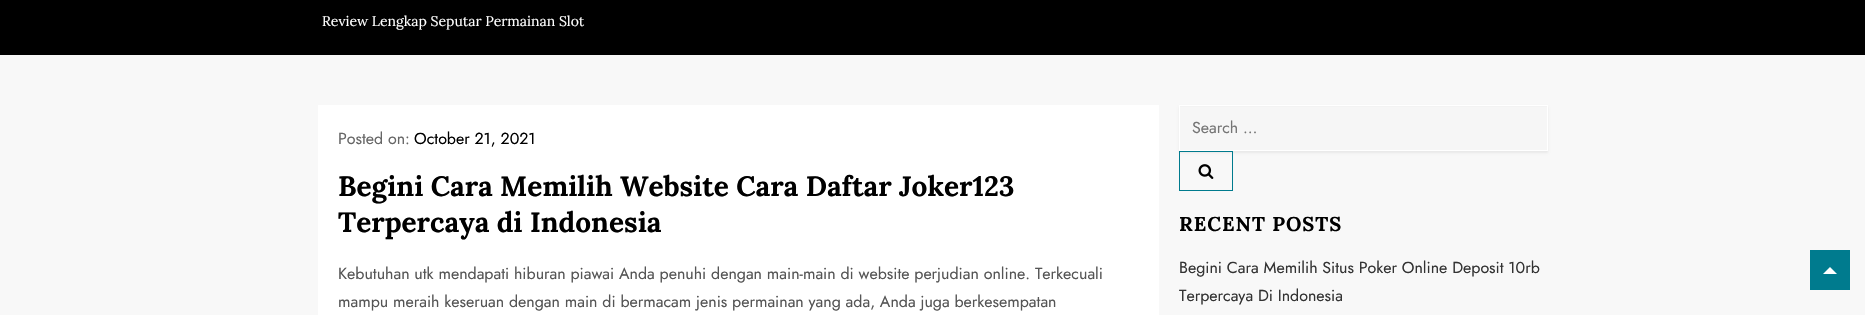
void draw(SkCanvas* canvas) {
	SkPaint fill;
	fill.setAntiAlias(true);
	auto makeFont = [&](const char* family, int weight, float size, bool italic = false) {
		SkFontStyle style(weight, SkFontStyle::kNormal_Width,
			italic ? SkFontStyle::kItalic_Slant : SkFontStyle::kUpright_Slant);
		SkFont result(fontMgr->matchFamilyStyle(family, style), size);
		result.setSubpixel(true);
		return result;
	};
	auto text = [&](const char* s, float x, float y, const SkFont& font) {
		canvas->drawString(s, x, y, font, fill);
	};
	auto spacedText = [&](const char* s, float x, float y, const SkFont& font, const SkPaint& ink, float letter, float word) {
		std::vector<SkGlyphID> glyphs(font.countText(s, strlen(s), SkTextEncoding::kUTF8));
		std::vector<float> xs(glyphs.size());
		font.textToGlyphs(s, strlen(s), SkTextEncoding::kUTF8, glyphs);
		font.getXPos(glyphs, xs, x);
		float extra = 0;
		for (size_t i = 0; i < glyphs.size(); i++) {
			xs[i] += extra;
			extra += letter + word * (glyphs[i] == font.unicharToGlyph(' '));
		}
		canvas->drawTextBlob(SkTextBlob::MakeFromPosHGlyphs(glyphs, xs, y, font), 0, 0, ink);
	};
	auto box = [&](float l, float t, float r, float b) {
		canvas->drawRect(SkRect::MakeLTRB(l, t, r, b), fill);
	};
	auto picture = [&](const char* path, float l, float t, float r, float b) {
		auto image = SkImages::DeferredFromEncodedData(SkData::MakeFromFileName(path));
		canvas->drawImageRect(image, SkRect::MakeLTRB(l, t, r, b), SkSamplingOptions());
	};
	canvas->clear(0xFFF8F8F8);
	fill.setColor(0xFF000000);
	box(0, 0, 1865, 55);
	fill.setColor(0xFFFFFFFF);
	box(318, 105, 1159, 315);
	fill.setColor(0x0F000000);
	fill.setMaskFilter(SkMaskFilter::MakeBlur(kNormal_SkBlurStyle, 1));
	canvas->drawRect(SkRect::MakeLTRB(1179, 107, 1548, 153), fill);
	fill.setMaskFilter(nullptr);
	fill.setColor(0xFFF6F6F6);
	box(1180, 107, 1547, 150);
	fill.setStyle(SkPaint::kStroke_Style);
	fill.setStrokeWidth(1);
	fill.setColor(0xFFFFFFFF);
	canvas->drawRect(SkRect::MakeLTRB(1179.5f, 105.5f, 1547.5f, 150.5f), fill);
	fill.setColor(0xFF007B8E);
	canvas->drawRect(SkRect::MakeLTRB(1179.5f, 151.5f, 1232.5f, 190.5f), fill);
	picture("image0.png", 1198, 164, 1214, 179);
	fill.setStyle(SkPaint::kFill_Style);
	box(1810, 250, 1850, 290);
	fill.setColor(0xFFFFFFFF);
	canvas->drawPath(SkPathBuilder().moveTo(1837, 274).lineTo(1823, 274).lineTo(1830, 267).close().detach(), fill);
	auto font1 = makeFont("Lora", 400, 14);
	text("Review Lengkap Seputar Permainan Slot", 322, 26, font1);
	auto font2 = makeFont("Jost", 400, 16);
	fill.setColor(0xFF666666);
	text("Posted on:", 338, 144, font2);
	fill.setColor(0xFF000000);
	text("October 21, 2021", 414, 144, font2);
	auto font3 = makeFont("Lora", 700, 28);
	text("Begini Cara Memilih Website Cara Daftar Joker123", 338, 196, font3);
	text("Terpercaya di Indonesia", 338, 232, font3);
	fill.setColor(0xFF555555);
	text("Kebutuhan utk mendapati hiburan piawai Anda penuhi dengan main-main di website perjudian online. Terkecuali", 338, 279, font2);
	text("mampu meraih keseruan dengan main di bermacam jenis permainan yang ada, Anda juga berkesempatan", 338, 307, font2);
	fill.setColor(0xFF757575);
	text("Search …", 1192, 133, font2);
	auto font4 = makeFont("Lora", 700, 20);
	fill.setColor(0xFF000000);
	spacedText("RECENT POSTS", 1179, 231, font4, fill, 1, 0);
	fill.setColor(0xFF333333);
	text("Begini Cara Memilih Situs Poker Online Deposit 10rb", 1179, 273, font2);
	text("Terpercaya Di Indonesia", 1179, 301, font2);
}
